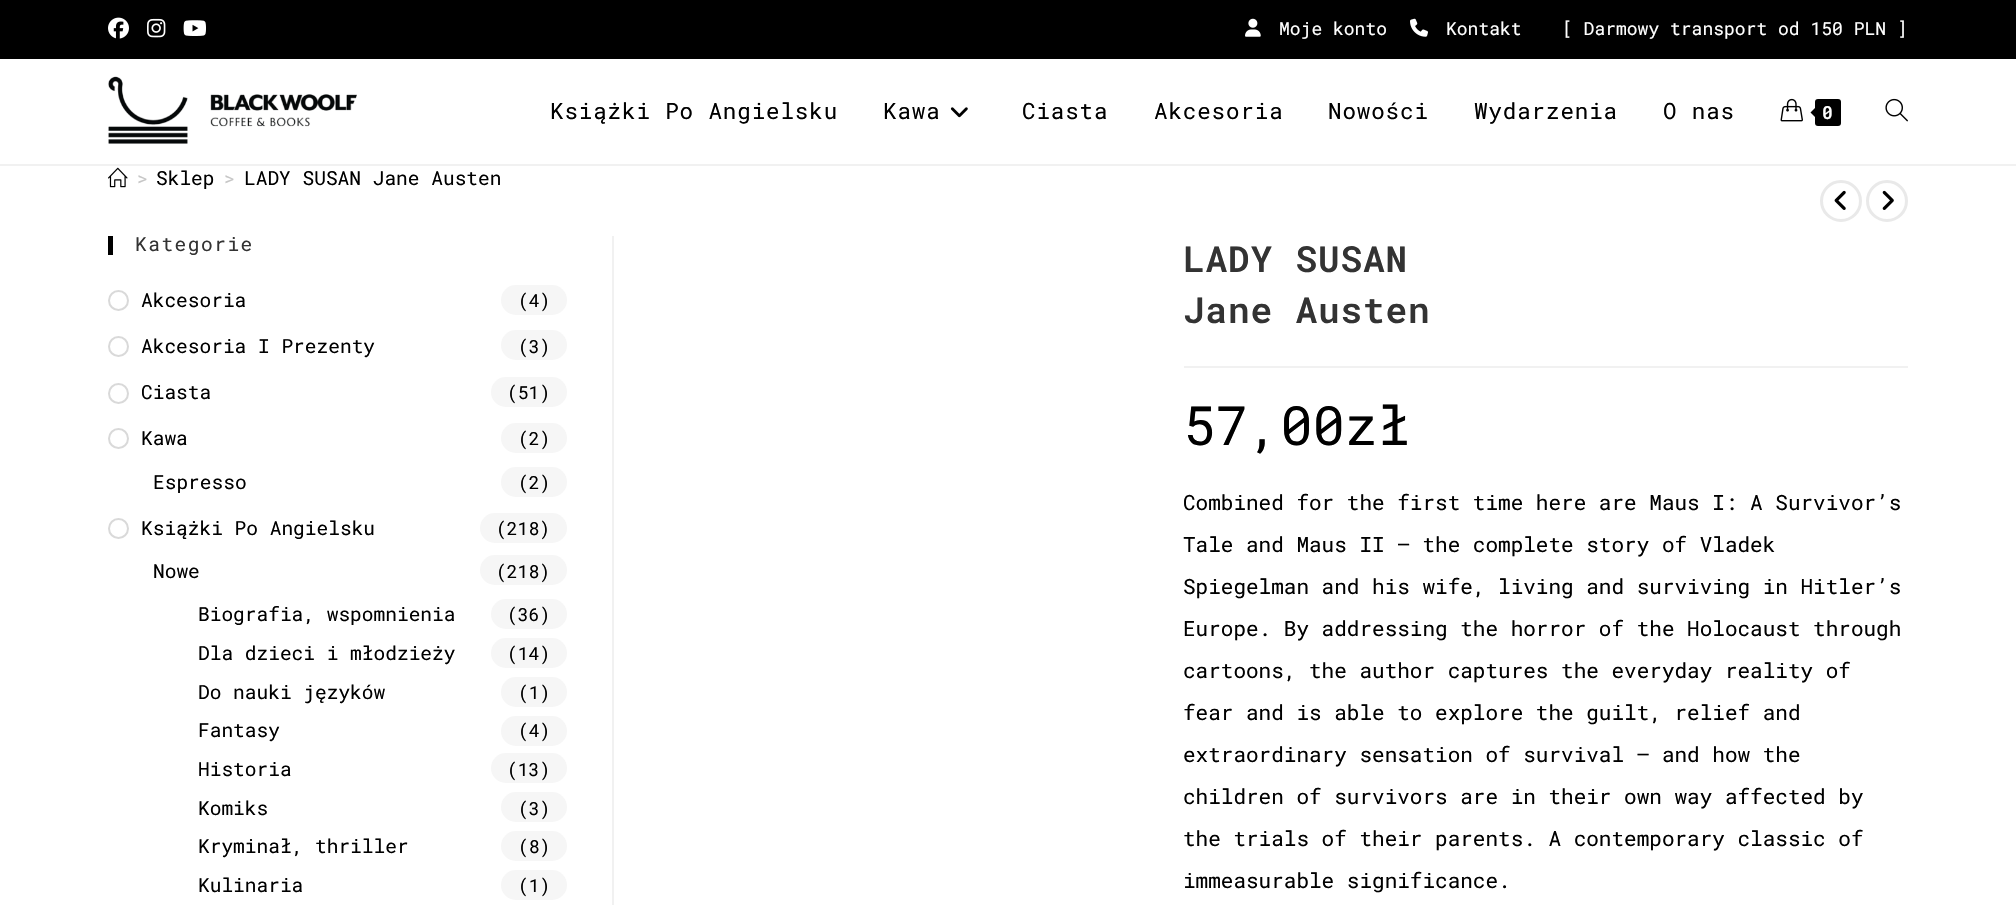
void draw(SkCanvas* canvas) {
	SkPaint fill;
	fill.setAntiAlias(true);
	auto makeFont = [&](const char* family, int weight, float size, bool italic = false) {
		SkFontStyle style(weight, SkFontStyle::kNormal_Width,
			italic ? SkFontStyle::kItalic_Slant : SkFontStyle::kUpright_Slant);
		SkFont result(fontMgr->matchFamilyStyle(family, style), size);
		result.setSubpixel(true);
		return result;
	};
	auto text = [&](const char* s, float x, float y, const SkFont& font) {
		canvas->drawString(s, x, y, font, fill);
	};
	auto spacedText = [&](const char* s, float x, float y, const SkFont& font, const SkPaint& ink, float letter, float word) {
		std::vector<SkGlyphID> glyphs(font.countText(s, strlen(s), SkTextEncoding::kUTF8));
		std::vector<float> xs(glyphs.size());
		font.textToGlyphs(s, strlen(s), SkTextEncoding::kUTF8, glyphs);
		font.getXPos(glyphs, xs, x);
		float extra = 0;
		for (size_t i = 0; i < glyphs.size(); i++) {
			xs[i] += extra;
			extra += letter + word * (glyphs[i] == font.unicharToGlyph(' '));
		}
		canvas->drawTextBlob(SkTextBlob::MakeFromPosHGlyphs(glyphs, xs, y, font), 0, 0, ink);
	};
	auto box = [&](float l, float t, float r, float b) {
		canvas->drawRect(SkRect::MakeLTRB(l, t, r, b), fill);
	};
	auto roundBox = [&](float l, float t, float r, float b, float radius) {
		canvas->drawRoundRect(SkRect::MakeLTRB(l, t, r, b), radius, radius, fill);
	};
	auto picture = [&](const char* path, float l, float t, float r, float b) {
		auto image = SkImages::DeferredFromEncodedData(SkData::MakeFromFileName(path));
		canvas->drawImageRect(image, SkRect::MakeLTRB(l, t, r, b), SkSamplingOptions());
	};
	canvas->clear(0xFFFFFFFF);
	fill.setColor(0xFF000000);
	box(0, 0, 2016, 59);
	picture("image0.png", 108, 17, 129, 39);
	picture("image1.png", 147, 18, 166, 38);
	picture("image2.png", 183, 20, 206, 36);
	picture("image3.png", 1245, 18, 1261, 37);
	picture("image4.png", 1410, 18, 1428, 37);
	fill.setColor(0xFFF1F1F1);
	box(0, 164, 2016, 166);
	picture("image5.png", 108, 76, 357, 144);
	picture("image6.png", 950, 107, 968, 118);
	picture("image7.png", 1780, 98, 1803, 122);
	fill.setColor(0xFF000000);
	roundBox(1815, 99, 1841, 126, 3);
	canvas->drawPath(SkPathBuilder().moveTo(1818, 105).lineTo(1818, 120).lineTo(1810.5f, 112.5f).close().detach(), fill);
	picture("image8.png", 1885, 98, 1908, 122);
	picture("image9.png", 108, 167, 128, 188);
	box(108, 236, 113, 255);
	fill.setStyle(SkPaint::kStroke_Style);
	fill.setStrokeWidth(2);
	fill.setColor(0xFFD9D9D9);
	canvas->drawCircle(118.5f, 300.5f, 9.5f, fill);
	fill.setStyle(SkPaint::kFill_Style);
	fill.setColor(0xFFF6F6F6);
	roundBox(501, 285, 567, 315, 15);
	fill.setStyle(SkPaint::kStroke_Style);
	fill.setColor(0xFFD9D9D9);
	canvas->drawCircle(118.5f, 346.5f, 9.5f, fill);
	fill.setStyle(SkPaint::kFill_Style);
	fill.setColor(0xFFF6F6F6);
	roundBox(501, 330, 567, 360, 15);
	fill.setStyle(SkPaint::kStroke_Style);
	fill.setColor(0xFFD9D9D9);
	canvas->drawCircle(118.5f, 393.5f, 9.5f, fill);
	fill.setStyle(SkPaint::kFill_Style);
	fill.setColor(0xFFF6F6F6);
	roundBox(491, 377, 567, 407, 15);
	fill.setStyle(SkPaint::kStroke_Style);
	fill.setColor(0xFFD9D9D9);
	canvas->drawCircle(118.5f, 438.5f, 9.5f, fill);
	fill.setStyle(SkPaint::kFill_Style);
	fill.setColor(0xFFF6F6F6);
	roundBox(501, 423, 567, 453, 15);
	roundBox(501, 467, 567, 497, 15);
	fill.setStyle(SkPaint::kStroke_Style);
	fill.setColor(0xFFD9D9D9);
	canvas->drawCircle(118.5f, 528.5f, 9.5f, fill);
	fill.setStyle(SkPaint::kFill_Style);
	fill.setColor(0xFFF6F6F6);
	roundBox(480, 513, 567, 543, 15);
	roundBox(480, 555, 567, 585, 15);
	roundBox(491, 599, 567, 629, 15);
	roundBox(491, 638, 567, 668, 15);
	roundBox(501, 677, 567, 707, 15);
	roundBox(501, 716, 567, 746, 15);
	roundBox(491, 753, 567, 783, 15);
	roundBox(501, 792, 567, 822, 15);
	roundBox(501, 831, 567, 861, 15);
	roundBox(501, 870, 567, 900, 15);
	fill.setColor(0xFFF1F1F1);
	box(612, 236, 614, 905);
	fill.setStyle(SkPaint::kStroke_Style);
	fill.setStrokeWidth(3);
	fill.setColor(0xFFE9E9E9);
	canvas->drawCircle(1841, 201, 19.5f, fill);
	picture("image10.png", 1834, 190, 1846, 210);
	canvas->drawCircle(1887, 201, 19.5f, fill);
	picture("image11.png", 1882, 190, 1894, 210);
	fill.setStyle(SkPaint::kFill_Style);
	fill.setColor(0xFFF1F1F1);
	box(1184, 366, 1908, 368);
	auto font1 = makeFont("Roboto Mono", 400, 18);
	fill.setColor(0xFFFFFFFF);
	text("Moje konto", 1279, 35, font1);
	text("Kontakt", 1446, 35, font1);
	text("[ Darmowy transport od 150 PLN ]", 1562, 35, font1);
	auto font2 = makeFont("Roboto Mono", 400, 22.5f);
	fill.setColor(0xFF000000);
	spacedText("Książki Po Angielsku", 550, 119, font2, fill, 0.9f, 0);
	spacedText("Kawa", 883, 119, font2, fill, 0.9f, 0);
	spacedText("Ciasta", 1022, 119, font2, fill, 0.9f, 0);
	spacedText("Akcesoria", 1154, 119, font2, fill, 0.9f, 0);
	spacedText("Nowości", 1328, 119, font2, fill, 0.9f, 0);
	spacedText("Wydarzenia", 1474, 119, font2, fill, 0.9f, 0);
	spacedText("O nas", 1663, 119, font2, fill, 0.9f, 0);
	auto font3 = makeFont("Roboto Mono", 600, 18);
	fill.setColor(0xFFFFFFFF);
	text("0", 1822, 119, font3);
	fill.setColor(0xFFC6C6C6);
	text(">", 137, 185, font1);
	auto font4 = makeFont("Roboto Mono", 400, 19.5f);
	fill.setColor(0xFF000000);
	text("Sklep", 156, 185, font4);
	fill.setColor(0xFFC6C6C6);
	text(">", 224, 185, font1);
	fill.setColor(0xFF000000);
	text("LADY SUSAN Jane Austen", 244, 185, font4);
	fill.setColor(0xFF333333);
	spacedText("Kategorie", 135, 251, font4, fill, 1.5f, 0);
	fill.setColor(0xFF000000);
	text("Akcesoria", 141, 307, font4);
	text("(4)", 518, 307, font1);
	text("Akcesoria I Prezenty", 141, 353, font4);
	text("(3)", 518, 353, font1);
	text("Ciasta", 141, 399, font4);
	text("(51)", 507, 399, font1);
	text("Kawa", 141, 445, font4);
	text("(2)", 518, 445, font1);
	text("Espresso", 153, 489, font4);
	text("(2)", 518, 489, font1);
	text("Książki Po Angielsku", 141, 535, font4);
	text("(218)", 496, 535, font1);
	text("Nowe", 153, 578, font4);
	text("(218)", 496, 578, font1);
	text("Biografia, wspomnienia", 198, 621, font4);
	text("(36)", 507, 621, font1);
	text("Dla dzieci i młodzieży", 198, 660, font4);
	text("(14)", 507, 660, font1);
	text("Do nauki języków", 198, 699, font4);
	text("(1)", 518, 699, font1);
	text("Fantasy", 198, 737, font4);
	text("(4)", 518, 737, font1);
	text("Historia", 198, 776, font4);
	text("(13)", 507, 776, font1);
	text("Komiks", 198, 815, font4);
	text("(3)", 518, 815, font1);
	text("Kryminał, thriller", 198, 853, font4);
	text("(8)", 518, 853, font1);
	text("Kulinaria", 198, 892, font4);
	text("(1)", 518, 892, font1);
	auto font5 = makeFont("Roboto Mono", 600, 36);
	fill.setColor(0xFF333333);
	spacedText("LADY SUSAN", 1183, 272, font5, fill, 0.9f, 0);
	spacedText("Jane Austen", 1183, 323, font5, fill, 0.9f, 0);
	auto font6 = makeFont("Roboto Mono", 400, 54);
	fill.setColor(0xFF000000);
	text("57,00zł", 1183, 445, font6);
	auto font7 = makeFont("Roboto Mono", 400, 21);
	text("Combined for the first time here are Maus I: A Survivor’s", 1183, 510, font7);
	text("Tale and Maus II – the complete story of Vladek", 1183, 552, font7);
	text("Spiegelman and his wife, living and surviving in Hitler’s", 1183, 594, font7);
	text("Europe. By addressing the horror of the Holocaust through", 1183, 636, font7);
	text("cartoons, the author captures the everyday reality of", 1183, 678, font7);
	text("fear and is able to explore the guilt, relief and", 1183, 720, font7);
	text("extraordinary sensation of survival – and how the", 1183, 762, font7);
	text("children of survivors are in their own way affected by", 1183, 804, font7);
	text("the trials of their parents. A contemporary classic of", 1183, 846, font7);
	text("immeasurable significance.", 1183, 888, font7);
}
